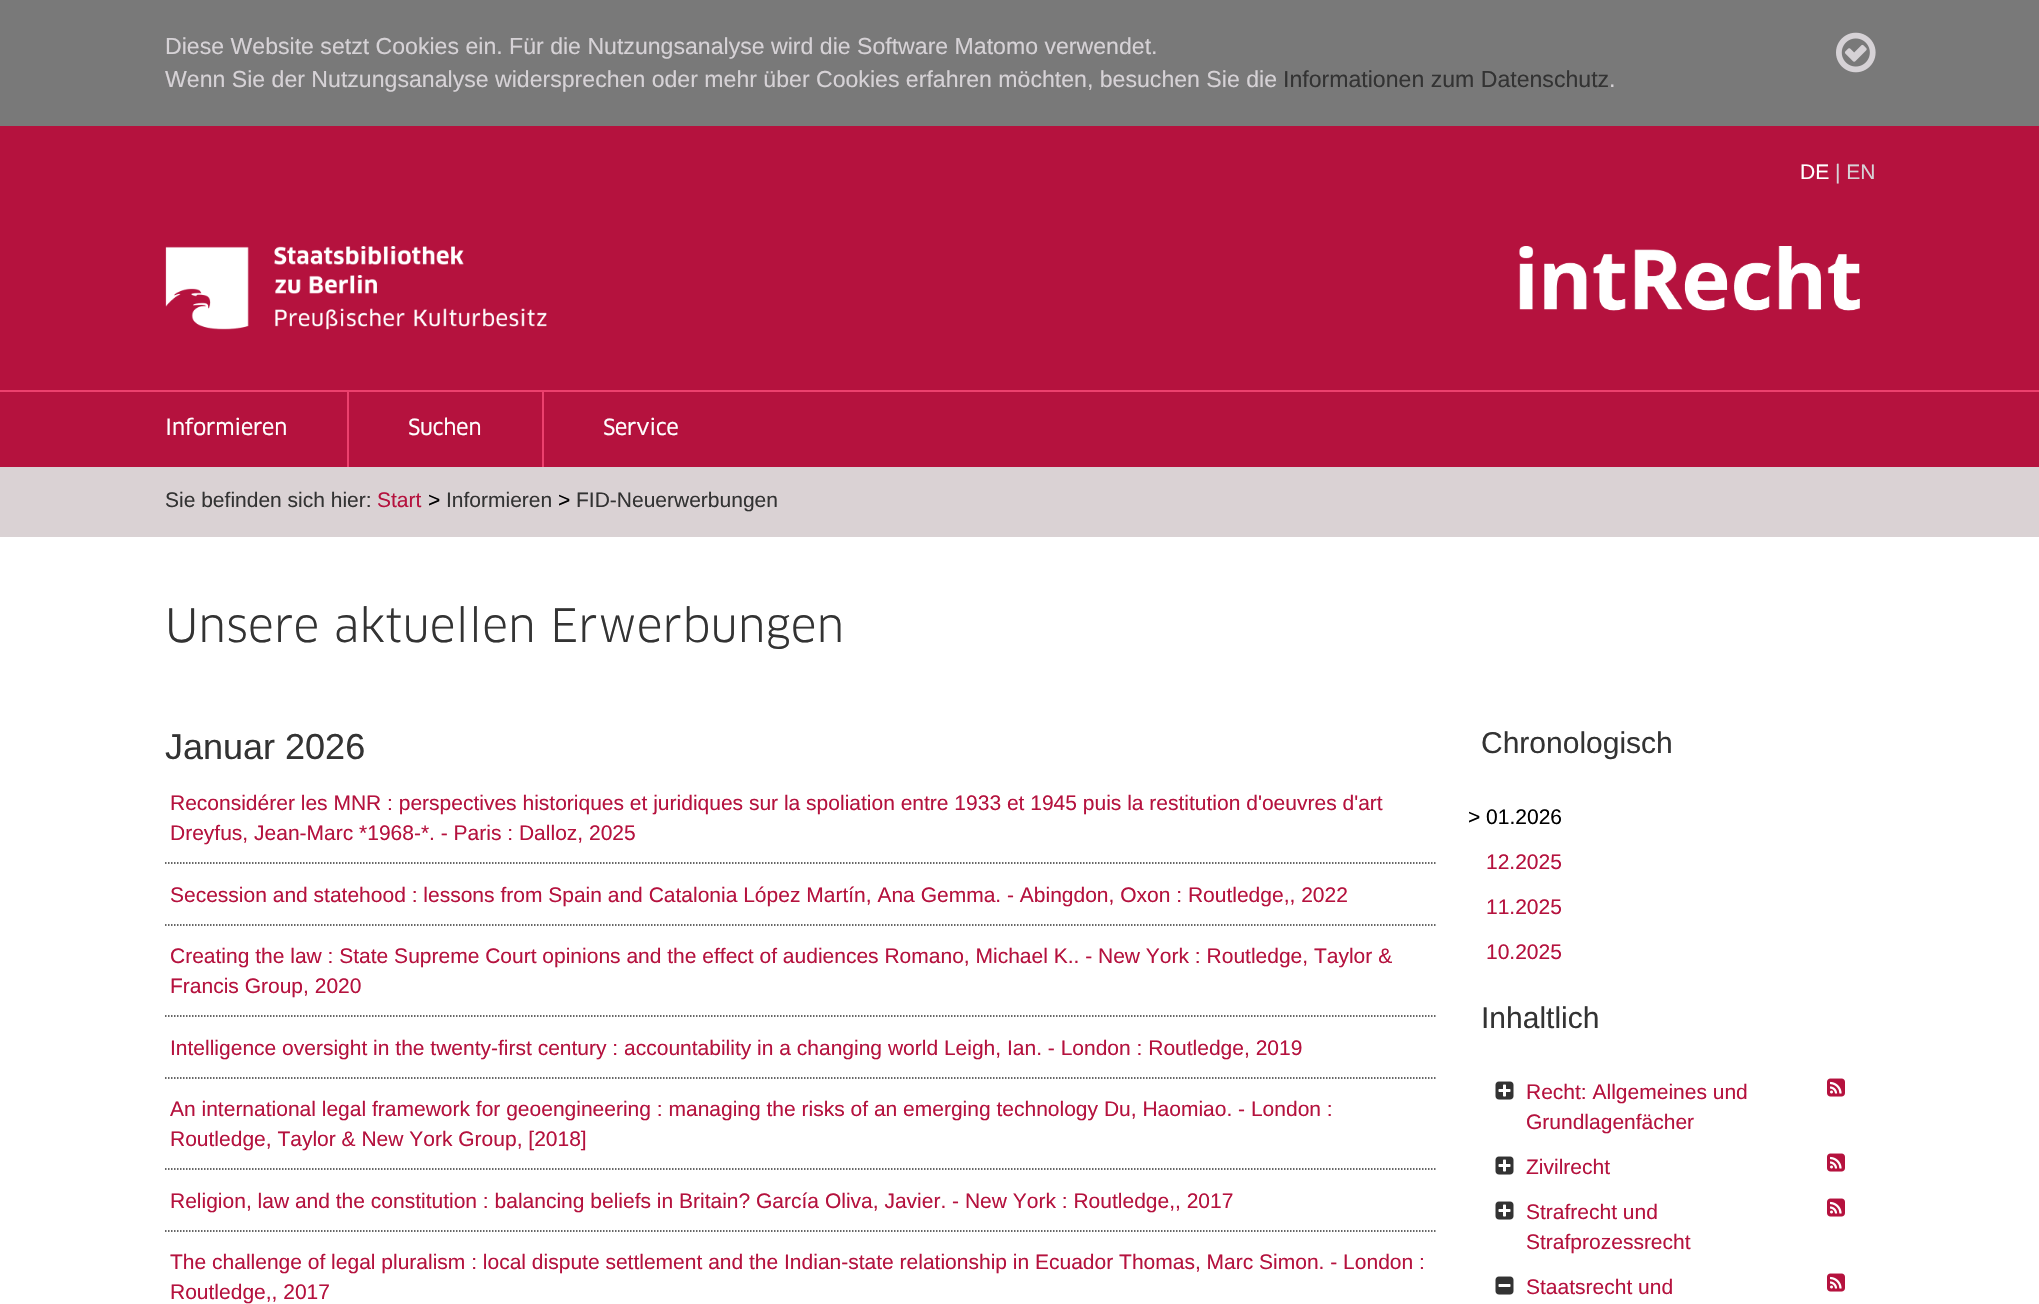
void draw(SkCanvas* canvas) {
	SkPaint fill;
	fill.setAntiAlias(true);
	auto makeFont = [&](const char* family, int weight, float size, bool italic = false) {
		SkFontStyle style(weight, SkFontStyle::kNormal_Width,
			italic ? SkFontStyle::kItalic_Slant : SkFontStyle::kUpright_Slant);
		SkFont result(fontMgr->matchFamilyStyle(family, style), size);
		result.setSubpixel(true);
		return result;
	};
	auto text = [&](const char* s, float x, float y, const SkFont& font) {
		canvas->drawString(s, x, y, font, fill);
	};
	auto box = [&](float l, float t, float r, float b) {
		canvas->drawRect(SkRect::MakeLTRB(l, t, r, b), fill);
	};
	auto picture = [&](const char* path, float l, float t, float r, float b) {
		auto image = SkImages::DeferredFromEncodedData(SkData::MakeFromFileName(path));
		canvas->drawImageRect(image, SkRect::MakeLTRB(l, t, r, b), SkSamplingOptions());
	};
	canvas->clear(0xFFFFFFFF);
	fill.setColor(0xFF797979);
	box(0, 0, 2039, 126);
	picture("image0.png", 1836, 32, 1876, 73);
	fill.setColor(0xFFB5123E);
	box(0, 126, 2039, 467);
	picture("image1.png", 165, 246, 547, 330);
	picture("image2.png", 1519, 246, 1860, 311);
	fill.setColor(0xFFEC406D);
	box(0, 390, 2039, 392);
	box(347, 392, 349, 467);
	box(542, 392, 544, 467);
	fill.setColor(0xFFDAD2D4);
	box(0, 467, 2039, 537);
	fill.setStyle(SkPaint::kStroke_Style);
	fill.setStrokeWidth(1.5f);
	fill.setColor(0xFF333333);
	fill.setPathEffect(SkDashPathEffect::Make({{1.5f, 1.5f}}, 0));
	canvas->drawPath(SkPathBuilder().moveTo(165, 863).lineTo(1437, 863).detach(), fill);
	fill.setPathEffect(nullptr);
	fill.setPathEffect(SkDashPathEffect::Make({{1.5f, 1.5f}}, 0));
	canvas->drawPath(SkPathBuilder().moveTo(165, 925).lineTo(1437, 925).detach(), fill);
	fill.setPathEffect(nullptr);
	fill.setPathEffect(SkDashPathEffect::Make({{1.5f, 1.5f}}, 0));
	canvas->drawPath(SkPathBuilder().moveTo(165, 1016).lineTo(1437, 1016).detach(), fill);
	fill.setPathEffect(nullptr);
	fill.setPathEffect(SkDashPathEffect::Make({{1.5f, 1.5f}}, 0));
	canvas->drawPath(SkPathBuilder().moveTo(165, 1078).lineTo(1437, 1078).detach(), fill);
	fill.setPathEffect(nullptr);
	fill.setPathEffect(SkDashPathEffect::Make({{1.5f, 1.5f}}, 0));
	canvas->drawPath(SkPathBuilder().moveTo(165, 1169).lineTo(1437, 1169).detach(), fill);
	fill.setPathEffect(nullptr);
	fill.setPathEffect(SkDashPathEffect::Make({{1.5f, 1.5f}}, 0));
	canvas->drawPath(SkPathBuilder().moveTo(165, 1231).lineTo(1437, 1231).detach(), fill);
	fill.setPathEffect(nullptr);
	picture("image3.png", 1495, 1081, 1514, 1100);
	picture("image4.png", 1827, 1078, 1845, 1097);
	picture("image3.png", 1495, 1156, 1514, 1175);
	picture("image4.png", 1827, 1153, 1845, 1172);
	picture("image3.png", 1495, 1201, 1514, 1220);
	picture("image4.png", 1827, 1198, 1845, 1217);
	picture("image5.png", 1495, 1276, 1514, 1295);
	picture("image4.png", 1827, 1273, 1845, 1292);
	auto font1 = makeFont("Liberation Sans", 400, 23.1f);
	fill.setStyle(SkPaint::kFill_Style);
	fill.setColor(0xFFD6D2D6);
	text("Diese Website setzt Cookies ein. Für die Nutzungsanalyse wird die Software Matomo verwendet.", 165, 54, font1);
	text("Wenn Sie der Nutzungsanalyse widersprechen oder mehr über Cookies erfahren möchten, besuchen Sie die", 165, 87, font1);
	fill.setColor(0xFF333333);
	text("Informationen zum Datenschutz", 1283, 87, font1);
	fill.setColor(0xFFD6D2D6);
	text(".", 1609, 87, font1);
	auto font2 = makeFont("Liberation Sans", 400, 21);
	fill.setColor(0xFFFFFFFF);
	text("DE", 1800, 179, font2);
	fill.setColor(0xFFD6D2D6);
	text("| EN", 1835, 179, font2);
	auto font3 = makeFont("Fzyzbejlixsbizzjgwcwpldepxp", 700, 21);
	fill.setColor(0xFFFFFFFF);
	text("Informieren", 165, 435, font3);
	text("Suchen", 408, 435, font3);
	text("Service", 603, 435, font3);
	fill.setColor(0xFF333333);
	text("Sie befinden sich hier:", 165, 507, font2);
	fill.setColor(0xFFB5123E);
	text("Start", 377, 507, font2);
	fill.setColor(0xFF000000);
	text(">", 428, 507, font2);
	fill.setColor(0xFF333333);
	text("Informieren", 446, 507, font2);
	fill.setColor(0xFF000000);
	text(">", 558, 507, font2);
	fill.setColor(0xFF333333);
	text("FID-Neuerwerbungen", 576, 507, font2);
	auto font4 = makeFont("Fzyzbejlixsbizzjgwcwpldepxp", 400, 45);
	text("Unsere aktuellen Erwerbungen", 165, 642, font4);
	auto font5 = makeFont("Liberation Sans", 400, 36);
	text("Januar 2026", 165, 759, font5);
	fill.setColor(0xFFB5123E);
	text("Reconsidérer les MNR : perspectives historiques et juridiques sur la spoliation entre 1933 et 1945 puis la restitution d'oeuvres d'art", 170, 810, font2);
	text("Dreyfus, Jean-Marc *1968-*. - Paris : Dalloz, 2025", 170, 840, font2);
	text("Secession and statehood : lessons from Spain and Catalonia López Martín, Ana Gemma. - Abingdon, Oxon : Routledge,, 2022", 170, 902, font2);
	text("Creating the law : State Supreme Court opinions and the effect of audiences Romano, Michael K.. - New York : Routledge, Taylor &", 170, 963, font2);
	text("Francis Group, 2020", 170, 993, font2);
	text("Intelligence oversight in the twenty-first century : accountability in a changing world Leigh, Ian. - London : Routledge, 2019", 170, 1055, font2);
	text("An international legal framework for geoengineering : managing the risks of an emerging technology Du, Haomiao. - London :", 170, 1116, font2);
	text("Routledge, Taylor & New York Group, [2018]", 170, 1146, font2);
	text("Religion, law and the constitution : balancing beliefs in Britain? García Oliva, Javier. - New York : Routledge,, 2017", 170, 1208, font2);
	text("The challenge of legal pluralism : local dispute settlement and the Indian-state relationship in Ecuador Thomas, Marc Simon. - London :", 170, 1269, font2);
	text("Routledge,, 2017", 170, 1299, font2);
	auto font6 = makeFont("Liberation Sans", 400, 30);
	fill.setColor(0xFF333333);
	text("Chronologisch", 1481, 753, font6);
	fill.setColor(0xFF000000);
	text("> 01.2026", 1468, 824, font2);
	fill.setColor(0xFFB5123E);
	text("12.2025", 1486, 869, font2);
	text("11.2025", 1486, 914, font2);
	text("10.2025", 1486, 959, font2);
	fill.setColor(0xFF333333);
	text("Inhaltlich", 1481, 1028, font6);
	fill.setColor(0xFFB5123E);
	text("Recht: Allgemeines und", 1526, 1099, font2);
	text("Grundlagenfächer", 1526, 1129, font2);
	text("Zivilrecht", 1526, 1174, font2);
	text("Strafrecht und", 1526, 1219, font2);
	text("Strafprozessrecht", 1526, 1249, font2);
	text("Staatsrecht und", 1526, 1294, font2);
}
